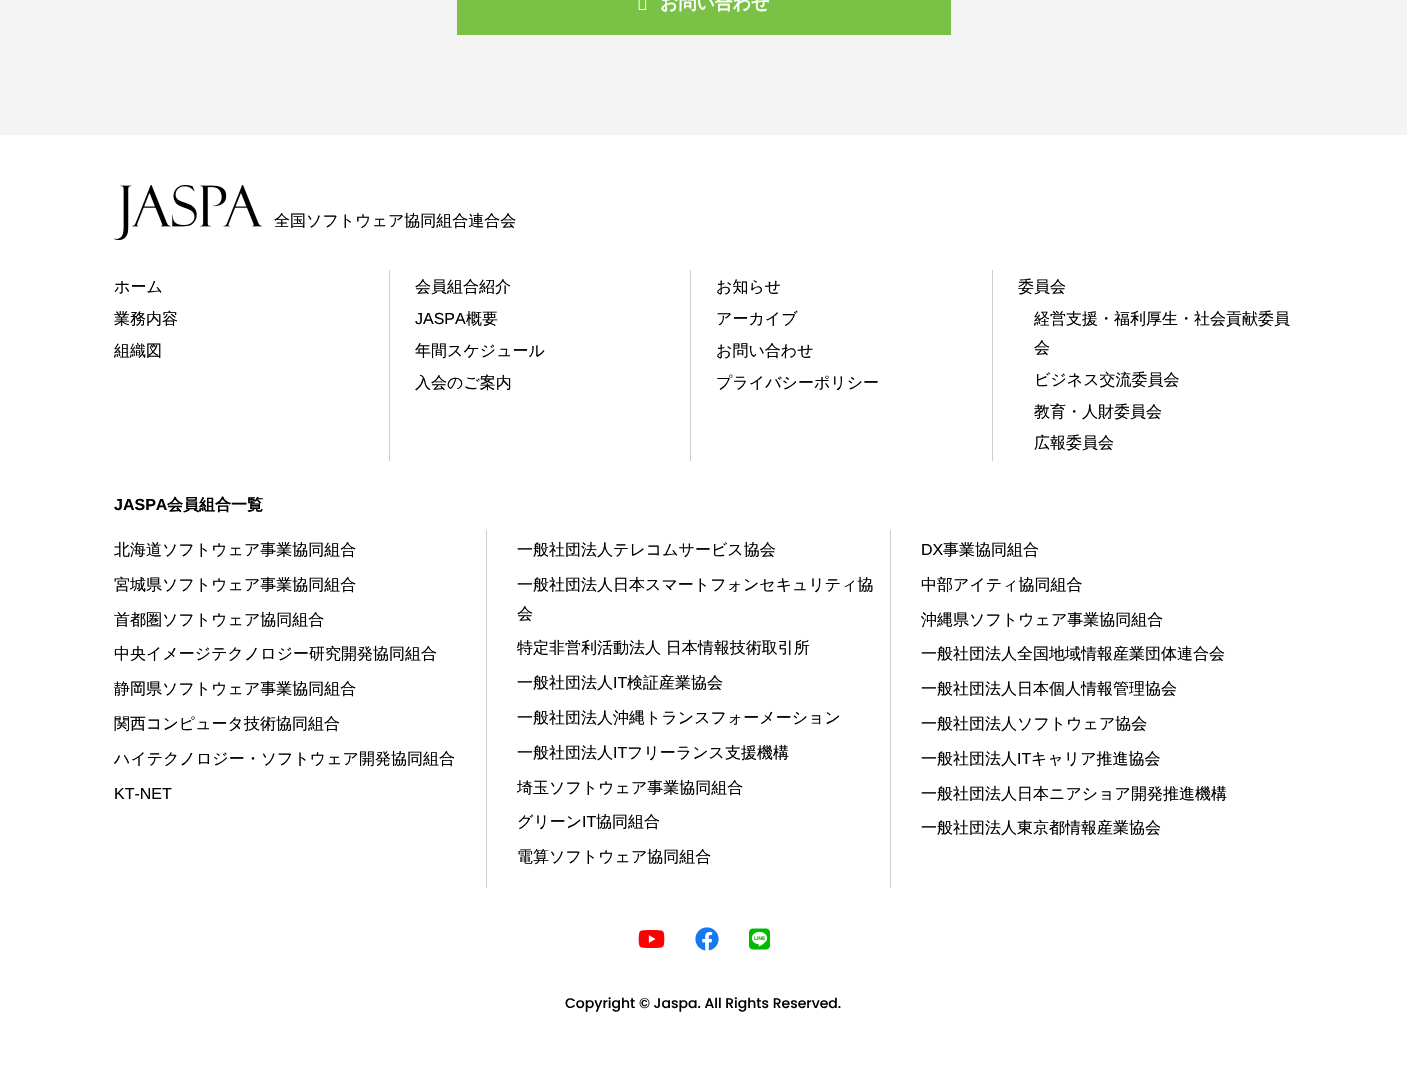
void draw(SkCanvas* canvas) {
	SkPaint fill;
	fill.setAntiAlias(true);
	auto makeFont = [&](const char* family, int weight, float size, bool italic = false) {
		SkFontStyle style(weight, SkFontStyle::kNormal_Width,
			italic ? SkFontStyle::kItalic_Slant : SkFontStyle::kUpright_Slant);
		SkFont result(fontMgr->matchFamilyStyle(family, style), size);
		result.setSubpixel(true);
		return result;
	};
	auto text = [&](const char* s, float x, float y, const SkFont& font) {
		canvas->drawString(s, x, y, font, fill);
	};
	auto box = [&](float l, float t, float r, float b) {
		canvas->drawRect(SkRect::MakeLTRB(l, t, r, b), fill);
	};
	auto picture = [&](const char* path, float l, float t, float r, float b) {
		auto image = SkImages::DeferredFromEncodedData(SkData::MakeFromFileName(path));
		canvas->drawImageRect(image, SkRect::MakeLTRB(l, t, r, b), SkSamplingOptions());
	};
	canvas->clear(0xFFFFFFFF);
	fill.setColor(0xFFF4F4F4);
	box(0, 0, 1407, 135);
	fill.setColor(0xFF7AC245);
	box(457, 0, 951, 35);
	picture("image0.png", 638, 0, 647, 10);
	picture("image1.png", 114, 185, 262, 240);
	fill.setColor(0xFFCCCCCC);
	box(389, 270, 390, 461);
	box(690, 270, 691, 461);
	box(992, 270, 993, 461);
	box(486, 530, 487, 888);
	box(890, 530, 891, 888);
	picture("image2.png", 638, 930, 665, 948);
	picture("image3.png", 695, 927, 719, 951);
	picture("image4.png", 749, 928, 770, 950);
	auto font1 = makeFont("WenQuanYi Zen Hei", 700, 18);
	fill.setColor(0xFFFFFFFF);
	text("お問い合わせ", 660, 9, font1);
	auto font2 = makeFont("WenQuanYi Zen Hei", 500, 16);
	fill.setColor(0xFF000000);
	text("全国ソフトウェア協同組合連合会", 274, 226, font2);
	text("ホーム", 114, 292, font2);
	text("業務内容", 114, 324, font2);
	text("組織図", 114, 356, font2);
	text("会員組合紹介", 415, 292, font2);
	auto font3 = makeFont("Liberation Sans", 400, 16);
	text("JASPA", 415, 324, font3);
	text("概要", 466, 324, font2);
	text("年間スケジュール", 415, 356, font2);
	text("⼊会のご案内", 415, 388, font2);
	text("お知らせ", 716, 292, font2);
	text("アーカイブ", 716, 324, font2);
	text("お問い合わせ", 716, 356, font2);
	text("プライバシーポリシー", 716, 388, font2);
	text("委員会", 1018, 292, font2);
	text("経営支援・福利厚生・社会貢献委員", 1034, 324, font2);
	text("会", 1034, 353, font2);
	text("ビジネス交流委員会", 1034, 385, font2);
	text("教育・⼈財委員会", 1034, 417, font2);
	text("広報委員会", 1034, 448, font2);
	auto font4 = makeFont("Liberation Sans", 700, 16);
	text("JASPA", 114, 510, font4);
	auto font5 = makeFont("WenQuanYi Zen Hei", 700, 16);
	text("会員組合一覧", 167, 510, font5);
	text("北海道ソフトウェア事業協同組合", 114, 555, font2);
	text("宮城県ソフトウェア事業協同組合", 114, 590, font2);
	text("⾸都圏ソフトウェア協同組合", 114, 625, font2);
	text("中央イメージテクノロジー研究開発協同組合", 114, 659, font2);
	text("静岡県ソフトウェア事業協同組合", 114, 694, font2);
	text("関⻄コンピュータ技術協同組合", 114, 729, font2);
	text("ハイテクノロジー・ソフトウェア開発協同組合", 114, 764, font2);
	text("KT-NET", 114, 799, font3);
	text("⼀般社団法⼈テレコムサービス協会", 517, 555, font2);
	text("⼀般社団法⼈⽇本スマートフォンセキュリティ協", 517, 590, font2);
	text("会", 517, 619, font2);
	text("特定⾮営利活動法⼈ ⽇本情報技術取引所", 517, 653, font2);
	text("⼀般社団法⼈", 517, 688, font2);
	text("IT", 613, 688, font3);
	text("検証産業協会", 627, 688, font2);
	text("⼀般社団法⼈沖縄トランスフォーメーション", 517, 723, font2);
	text("一般社団法人", 517, 758, font2);
	text("IT", 613, 758, font3);
	text("フリーランス支援機構", 627, 758, font2);
	text("埼⽟ソフトウェア事業協同組合", 517, 793, font2);
	text("グリーン", 517, 827, font2);
	text("IT", 582, 827, font3);
	text("協同組合", 596, 827, font2);
	text("電算ソフトウェア協同組合", 517, 862, font2);
	text("DX", 921, 555, font3);
	text("事業協同組合", 943, 555, font2);
	text("中部アイティ協同組合", 921, 590, font2);
	text("沖縄県ソフトウェア事業協同組合", 921, 625, font2);
	text("⼀般社団法⼈全国地域情報産業団体連合会", 921, 659, font2);
	text("⼀般社団法⼈⽇本個⼈情報管理協会", 921, 694, font2);
	text("⼀般社団法⼈ソフトウェア協会", 921, 729, font2);
	text("⼀般社団法⼈", 921, 764, font2);
	text("IT", 1017, 764, font3);
	text("キャリア推進協会", 1031, 764, font2);
	text("⼀般社団法⼈⽇本ニアショア開発推進機構", 921, 799, font2);
	text("一般社団法人東京都情報産業協会", 921, 833, font2);
	auto font6 = makeFont("Poppins", 500, 14);
	text("Copyright © Jaspa. All Rights Reserved.", 565, 1008, font6);
}
